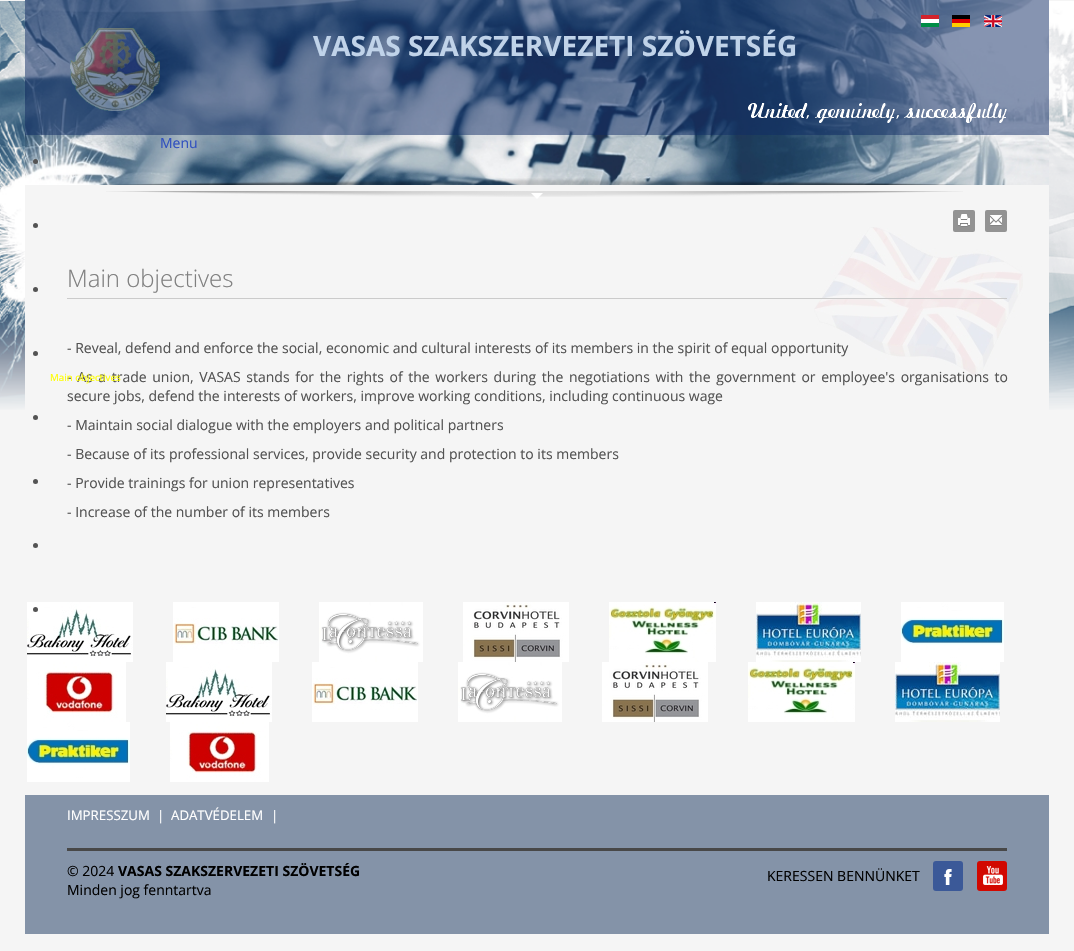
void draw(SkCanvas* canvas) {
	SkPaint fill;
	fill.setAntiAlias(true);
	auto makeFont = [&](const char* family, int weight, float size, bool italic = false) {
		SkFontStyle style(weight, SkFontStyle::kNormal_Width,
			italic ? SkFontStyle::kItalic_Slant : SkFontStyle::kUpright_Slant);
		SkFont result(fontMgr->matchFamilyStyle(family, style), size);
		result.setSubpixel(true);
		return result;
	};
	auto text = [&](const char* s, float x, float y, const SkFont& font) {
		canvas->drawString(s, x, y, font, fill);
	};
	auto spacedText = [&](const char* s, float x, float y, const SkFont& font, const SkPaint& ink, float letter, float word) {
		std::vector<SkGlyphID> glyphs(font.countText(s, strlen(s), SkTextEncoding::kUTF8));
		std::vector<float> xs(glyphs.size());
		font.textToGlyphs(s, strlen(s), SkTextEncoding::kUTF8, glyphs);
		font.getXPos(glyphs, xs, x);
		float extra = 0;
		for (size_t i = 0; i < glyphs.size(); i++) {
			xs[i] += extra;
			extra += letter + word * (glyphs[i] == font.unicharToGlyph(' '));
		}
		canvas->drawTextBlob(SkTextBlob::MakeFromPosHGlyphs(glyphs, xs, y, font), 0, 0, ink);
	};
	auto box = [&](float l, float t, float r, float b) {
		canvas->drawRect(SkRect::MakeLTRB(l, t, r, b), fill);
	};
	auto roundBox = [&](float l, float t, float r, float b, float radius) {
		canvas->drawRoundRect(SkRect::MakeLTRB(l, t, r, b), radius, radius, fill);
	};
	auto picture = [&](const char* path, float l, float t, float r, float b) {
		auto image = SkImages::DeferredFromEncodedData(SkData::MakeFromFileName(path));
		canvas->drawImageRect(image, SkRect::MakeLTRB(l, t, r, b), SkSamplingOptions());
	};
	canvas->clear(0xFFF5F5F5);
	picture("image0.png", 0, 1, 1074, 410);
	fill.setColor(0xFFF5F5F5);
	box(25, 185, 1049, 410);
	picture("image1.png", 25, 0, 1049, 185);
	picture("image2.png", 99, 178, 971, 185);
	picture("image3.png", 106, 191, 963, 197);
	fill.setColor(0xFFFFFFFF);
	canvas->drawPath(SkPathBuilder().moveTo(531, 193).lineTo(543, 193).lineTo(537, 199).close().detach(), fill);
	fill.setColor(0x800D2964);
	box(25, 0, 1049, 135);
	picture("image4.png", 921, 15, 939, 27);
	picture("image5.png", 952, 15, 970, 27);
	picture("image6.png", 984, 15, 1002, 27);
	picture("image7.png", 70, 28, 160, 111);
	picture("image8.png", 748, 103, 1007, 123);
	fill.setColor(0xFF535353);
	canvas->drawCircle(35.5f, 161.5f, 2.5f, fill);
	canvas->drawCircle(35.5f, 225.5f, 2.5f, fill);
	canvas->drawCircle(35.5f, 289.5f, 2.5f, fill);
	canvas->drawCircle(35.5f, 353.5f, 2.5f, fill);
	canvas->drawCircle(35.5f, 417.5f, 2.5f, fill);
	canvas->drawCircle(35.5f, 481.5f, 2.5f, fill);
	canvas->drawCircle(35.5f, 545.5f, 2.5f, fill);
	picture("image12.png", 27, 602, 133, 662);
	canvas->drawCircle(35.5f, 609.5f, 2.5f, fill);
	picture("image9.png", 814, 227, 1023, 376);
	fill.setColor(0xFF939393);
	roundBox(953, 210, 975, 232, 2);
	picture("image10.png", 958, 214, 970, 227);
	roundBox(985, 210, 1007, 232, 2);
	picture("image11.png", 990, 215, 1002, 226);
	fill.setColor(0xFFCBCBCB);
	box(67, 298, 1007, 299);
	picture("image13.png", 173, 602, 279, 662);
	picture("image14.png", 319, 602, 423, 662);
	picture("image15.png", 463, 602, 569, 662);
	picture("image16.png", 609, 602, 716, 662);
	picture("image17.png", 756, 602, 861, 662);
	picture("image18.png", 901, 602, 1004, 662);
	picture("image19.png", 27, 662, 126, 722);
	picture("image12.png", 166, 662, 272, 722);
	picture("image13.png", 312, 662, 418, 722);
	picture("image14.png", 458, 662, 562, 722);
	picture("image15.png", 602, 662, 708, 722);
	picture("image16.png", 748, 662, 855, 722);
	picture("image17.png", 895, 662, 1000, 722);
	picture("image18.png", 27, 722, 130, 782);
	picture("image19.png", 170, 722, 269, 782);
	fill.setColor(0xFF8493A8);
	box(25, 795, 1049, 934);
	fill.setColor(0xFF484848);
	box(67, 848, 1007, 851);
	fill.setColor(0xFF3B5998);
	roundBox(933, 861, 963, 891, 3);
	picture("image20.png", 944, 869, 952, 885);
	fill.setColor(0xFFD20800);
	roundBox(977, 861, 1007, 891, 3);
	picture("image21.png", 983, 866, 1003, 885);
	auto font1 = makeFont("Open Sans", 700, 28);
	fill.setColor(0xFFC0D3E9);
	text("VASAS SZAKSZERVEZETI SZÖVETSÉG", 313, 56, font1);
	auto font2 = makeFont("Open Sans", 400, 14);
	fill.setColor(0xFF3050BF);
	text("Menu", 160, 148, font2);
	auto font3 = makeFont("Open Sans", 300, 24);
	fill.setColor(0xFF808080);
	text("Main objectives", 67, 287, font3);
	fill.setColor(0xFF535353);
	text("- Reveal, defend and enforce the social, economic and cultural interests of its members in the spirit of equal opportunity", 67, 353, font2);
	spacedText("- As a trade union, VASAS stands for the rights of the workers during the negotiations with the government or employee's organisations to", 67, 382, font2, fill, 0, 2);
	auto font4 = makeFont("Open Sans", 400, 9.75f);
	fill.setColor(0xFFFFFF00);
	text("Main objectives", 50, 381, font4);
	fill.setColor(0xFF535353);
	text("secure jobs, defend the interests of workers, improve working conditions, including continuous wage", 67, 401, font2);
	text("- Maintain social dialogue with the employers and political partners", 67, 430, font2);
	text("- Because of its professional services, provide security and protection to its members", 67, 459, font2);
	text("- Provide trainings for union representatives", 67, 488, font2);
	text("- Increase of the number of its members", 67, 517, font2);
	auto font5 = makeFont("Open Sans", 400, 13.25f);
	fill.setColor(0xFFFFFFFF);
	text("IMPRESSZUM", 67, 820, font5);
	text("|", 157, 820, font5);
	text("ADATVÉDELEM", 171, 820, font5);
	text("|", 271, 820, font5);
	fill.setColor(0xFF000000);
	text("© 2024", 67, 876, font2);
	auto font6 = makeFont("Open Sans", 700, 14);
	text("VASAS SZAKSZERVEZETI SZÖVETSÉG", 118, 876, font6);
	text("Minden jog fenntartva", 67, 895, font2);
	text("KERESSEN BENNÜNKET", 767, 881, font2);
}
